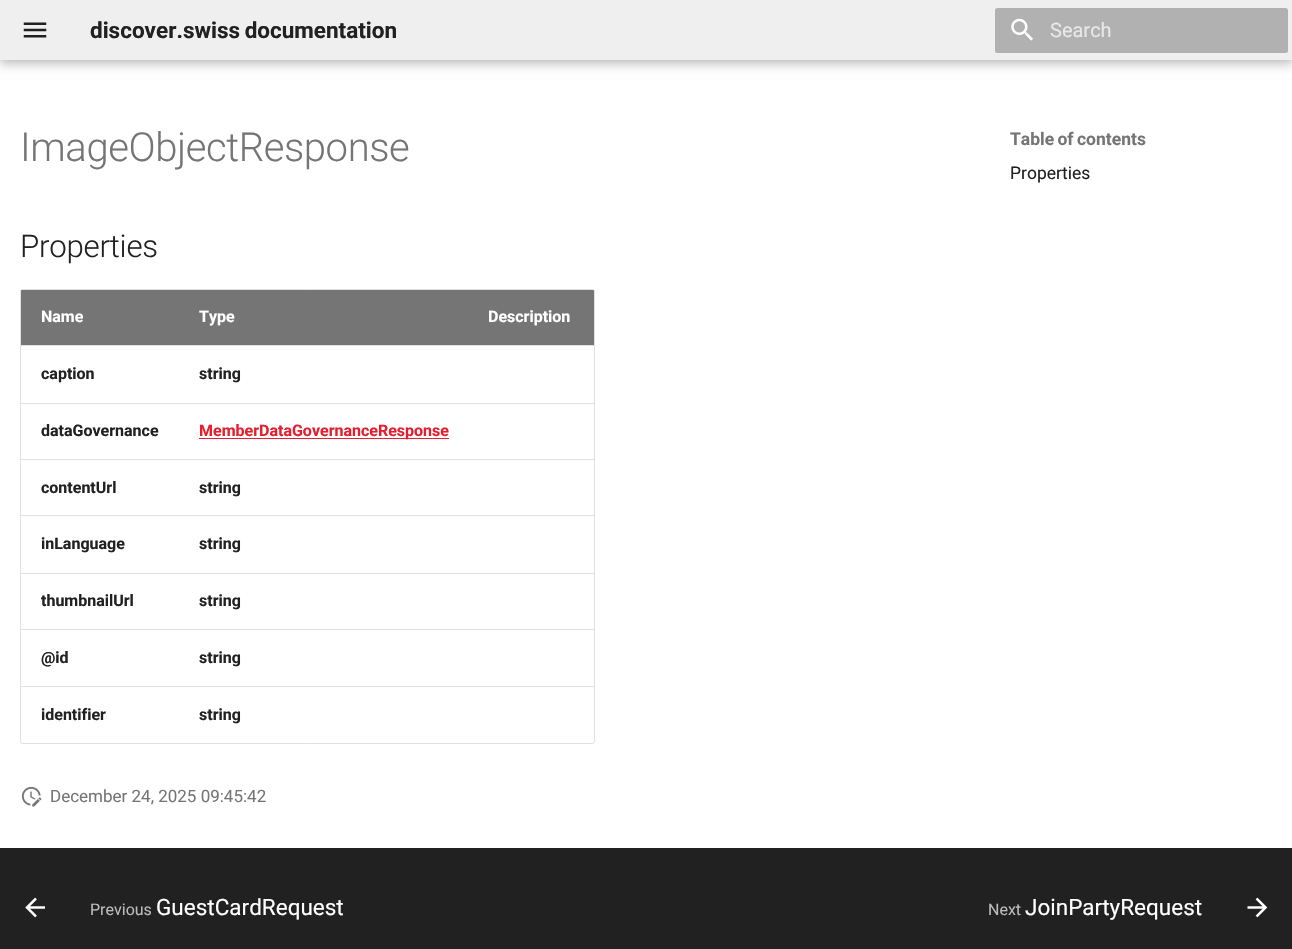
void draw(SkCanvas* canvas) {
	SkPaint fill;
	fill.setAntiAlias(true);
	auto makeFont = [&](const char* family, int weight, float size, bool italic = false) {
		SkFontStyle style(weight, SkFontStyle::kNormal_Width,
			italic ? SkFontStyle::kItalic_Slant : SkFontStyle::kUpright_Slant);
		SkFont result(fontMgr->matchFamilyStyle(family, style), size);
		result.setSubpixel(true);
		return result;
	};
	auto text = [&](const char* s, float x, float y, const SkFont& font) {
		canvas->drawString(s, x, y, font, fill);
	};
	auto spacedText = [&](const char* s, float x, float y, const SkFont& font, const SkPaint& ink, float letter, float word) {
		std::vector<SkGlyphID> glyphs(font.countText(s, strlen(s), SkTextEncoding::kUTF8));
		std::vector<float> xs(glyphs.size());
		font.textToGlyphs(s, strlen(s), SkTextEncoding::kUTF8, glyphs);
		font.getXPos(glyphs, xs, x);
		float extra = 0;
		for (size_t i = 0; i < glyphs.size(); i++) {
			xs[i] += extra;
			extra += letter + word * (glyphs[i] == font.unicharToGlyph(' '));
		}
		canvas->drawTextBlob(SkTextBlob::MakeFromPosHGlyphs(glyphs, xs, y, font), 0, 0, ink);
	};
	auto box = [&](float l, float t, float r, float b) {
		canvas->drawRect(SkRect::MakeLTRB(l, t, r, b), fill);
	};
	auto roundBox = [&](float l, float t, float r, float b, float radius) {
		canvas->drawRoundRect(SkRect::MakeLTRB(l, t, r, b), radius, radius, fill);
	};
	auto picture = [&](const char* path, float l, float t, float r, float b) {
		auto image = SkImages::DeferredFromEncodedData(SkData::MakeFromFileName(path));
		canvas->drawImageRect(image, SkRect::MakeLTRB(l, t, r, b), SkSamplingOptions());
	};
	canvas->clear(0xFFFFFFFF);
	fill.setColor(0x33000000);
	fill.setMaskFilter(SkMaskFilter::MakeBlur(kNormal_SkBlurStyle, 5));
	canvas->drawRect(SkRect::MakeLTRB(0, 5, 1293, 65), fill);
	fill.setMaskFilter(nullptr);
	fill.setColor(0x1A000000);
	fill.setMaskFilter(SkMaskFilter::MakeBlur(kNormal_SkBlurStyle, 2.5f));
	canvas->drawRect(SkRect::MakeLTRB(0, 0, 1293, 60), fill);
	fill.setMaskFilter(nullptr);
	fill.setColor(0xFFEFEFEF);
	box(0, 0, 1292, 60);
	picture("image0.png", 23, 22, 47, 38);
	fill.setColor(0xFFB1B1B1);
	roundBox(995, 8, 1288, 53, 2.5f);
	picture("image1.png", 1011, 18, 1033, 41);
	fill.setStyle(SkPaint::kStroke_Style);
	fill.setStrokeWidth(1);
	fill.setColor(0xFFE0E0E0);
	canvas->drawRoundRect(SkRect::MakeLTRB(20.5f, 289.5f, 594.5f, 743.5f), 2, 2, fill);
	fill.setStyle(SkPaint::kFill_Style);
	fill.setColor(0x8A000000);
	canvas->drawPath(SkPathBuilder().moveTo(22, 290).lineTo(179, 290).lineTo(179, 345).lineTo(21, 345).lineTo(21, 291).cubicTo(21, 290.5f, 21.5f, 290, 22, 290).close().detach(), fill);
	fill.setColor(0xFF757575);
	box(179, 290, 469, 345);
	fill.setColor(0x8A000000);
	canvas->drawPath(SkPathBuilder().moveTo(469, 290).lineTo(593, 290).cubicTo(593.5f, 290, 594, 290.5f, 594, 291).lineTo(594, 345).lineTo(469, 345).close().detach(), fill);
	fill.setColor(0xFFE0E0E0);
	box(21, 345, 594, 346);
	box(21, 403, 594, 404);
	fill.setColor(0xFFE61E2D);
	box(199, 438, 449, 439);
	fill.setColor(0xFFE0E0E0);
	box(21, 459, 594, 460);
	box(21, 515, 594, 516);
	box(21, 573, 594, 574);
	box(21, 629, 594, 630);
	box(21, 686, 594, 687);
	picture("image2.png", 21, 786, 42, 807);
	canvas->save();
	canvas->clipRect(SkRect::MakeLTRB(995, 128, 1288, 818));
	canvas->clipPath(SkPathBuilder(SkPathFillType::kEvenOdd).moveTo(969, 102).lineTo(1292, 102).lineTo(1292, 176).lineTo(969, 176).close().moveTo(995, 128).lineTo(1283, 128).lineTo(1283, 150).lineTo(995, 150).close().detach(), true);
	fill.setColor(0xFFFFFFFF);
	fill.setMaskFilter(SkMaskFilter::MakeBlur(kNormal_SkBlurStyle, 5));
	canvas->drawRect(SkRect::MakeLTRB(985, 118, 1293, 160), fill);
	fill.setMaskFilter(nullptr);
	canvas->restore();
	fill.setColor(0xFF212121);
	box(0, 848, 1292, 949);
	picture("image3.png", 25, 897, 45, 918);
	picture("image4.png", 1247, 897, 1268, 918);
	auto font1 = makeFont("Roboto", 700, 22.5f);
	spacedText("discover.swiss documentation", 90, 38, font1, fill, 0, -1);
	auto font2 = makeFont("Roboto", 400, 20);
	fill.setColor(0xFFE8E8E8);
	text("Search", 1050, 37, font2);
	auto font3 = makeFont("Roboto", 300, 40);
	fill.setColor(0xFF757575);
	spacedText("ImageObjectResponse", 20, 161, font3, fill, -0.4f, 0);
	auto font4 = makeFont("Roboto", 300, 31.25f);
	fill.setColor(0xFF212121);
	spacedText("Properties", 20, 257, font4, fill, -0.25f, 0);
	auto font5 = makeFont("Roboto", 700, 16);
	fill.setColor(0xFFFFFFFF);
	text("Name", 41, 322, font5);
	text("Type", 199, 322, font5);
	text("Description", 488, 322, font5);
	fill.setColor(0xFF212121);
	text("caption", 41, 379, font5);
	text("string", 199, 379, font5);
	text("dataGovernance", 41, 436, font5);
	fill.setColor(0xFFE61E2D);
	text("MemberDataGovernanceResponse", 199, 436, font5);
	fill.setColor(0xFF212121);
	text("contentUrl", 41, 493, font5);
	text("string", 199, 493, font5);
	text("inLanguage", 41, 549, font5);
	text("string", 199, 549, font5);
	text("thumbnailUrl", 41, 606, font5);
	text("string", 199, 606, font5);
	text("@id", 41, 663, font5);
	text("string", 199, 663, font5);
	text("identifier", 41, 720, font5);
	text("string", 199, 720, font5);
	auto font6 = makeFont("Roboto", 400, 17);
	fill.setColor(0xFF757575);
	text("December 24, 2025 09:45:42", 50, 802, font6);
	auto font7 = makeFont("Roboto", 700, 17.5f);
	spacedText("Table of contents", 1010, 145, font7, fill, 0, -1);
	auto font8 = makeFont("Roboto", 400, 17.5f);
	fill.setColor(0xFF212121);
	text("Properties", 1010, 179, font8);
	auto font9 = makeFont("Roboto", 400, 16);
	fill.setColor(0xFFBCBCBC);
	text("Previous", 90, 915, font9);
	auto font10 = makeFont("Roboto", 400, 22.5f);
	fill.setColor(0xFFFFFFFF);
	text("GuestCardRequest", 156, 915, font10);
	fill.setColor(0xFFBCBCBC);
	text("Next", 988, 915, font9);
	fill.setColor(0xFFFFFFFF);
	text("JoinPartyRequest", 1025, 915, font10);
}
